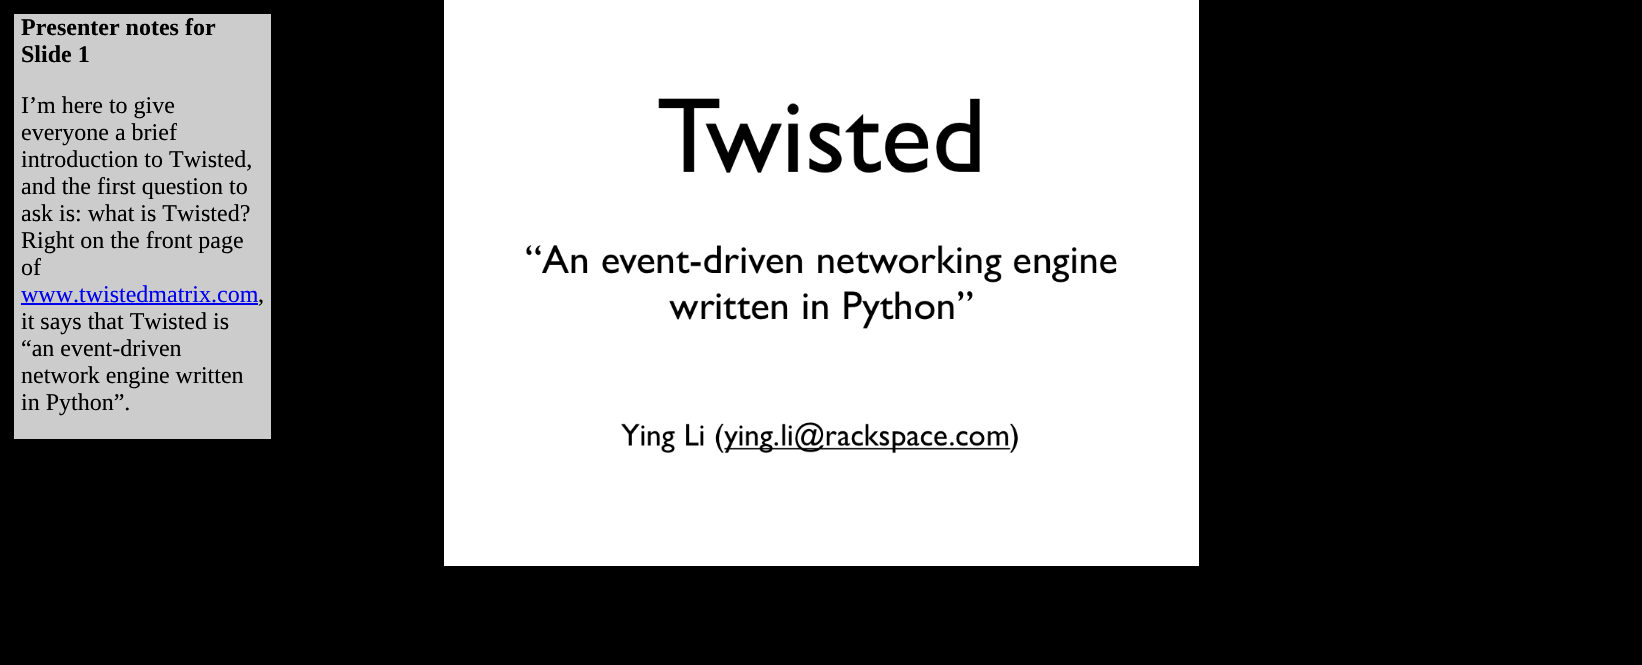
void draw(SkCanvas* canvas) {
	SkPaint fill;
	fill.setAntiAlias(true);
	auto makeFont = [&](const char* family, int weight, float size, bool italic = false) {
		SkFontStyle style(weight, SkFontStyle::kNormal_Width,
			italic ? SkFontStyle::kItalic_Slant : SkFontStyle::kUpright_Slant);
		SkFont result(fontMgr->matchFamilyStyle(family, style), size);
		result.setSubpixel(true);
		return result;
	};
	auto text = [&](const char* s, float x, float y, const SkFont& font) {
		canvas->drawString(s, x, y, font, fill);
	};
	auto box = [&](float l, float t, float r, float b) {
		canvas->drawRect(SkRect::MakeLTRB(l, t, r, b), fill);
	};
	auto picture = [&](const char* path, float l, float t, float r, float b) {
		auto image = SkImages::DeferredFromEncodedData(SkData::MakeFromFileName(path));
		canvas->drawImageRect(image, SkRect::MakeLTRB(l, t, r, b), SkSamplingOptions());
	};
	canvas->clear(0xFF000000);
	fill.setColor(0xFFCCCCCC);
	box(14, 14, 271, 439);
	fill.setColor(0xFF0000EE);
	box(21, 303, 258, 305);
	fill.setColor(0xFFFFFFFF);
	box(444, 0, 1199, 566);
	picture("image0.png", 658, 98, 980, 173);
	picture("image1.png", 526, 245, 1117, 329);
	picture("image2.png", 621, 422, 1018, 453);
	auto font1 = makeFont("Liberation Serif", 700, 24);
	fill.setColor(0xFF000000);
	text("Presenter notes for", 21, 35, font1);
	text("Slide 1", 21, 62, font1);
	auto font2 = makeFont("Liberation Serif", 400, 24);
	text("I’m here to give", 21, 113, font2);
	text("everyone a brief", 21, 140, font2);
	text("introduction to Twisted,", 21, 167, font2);
	text("and the first question to", 21, 194, font2);
	text("ask is: what is Twisted?", 21, 221, font2);
	text("Right on the front page", 21, 248, font2);
	text("of", 21, 275, font2);
	fill.setColor(0xFF0000EE);
	text("www.twistedmatrix.com", 21, 302, font2);
	fill.setColor(0xFF000000);
	text(",", 258, 302, font2);
	text("it says that Twisted is", 21, 329, font2);
	text("“an event-driven", 21, 356, font2);
	text("network engine written", 21, 383, font2);
	text("in Python”.", 21, 410, font2);
}
